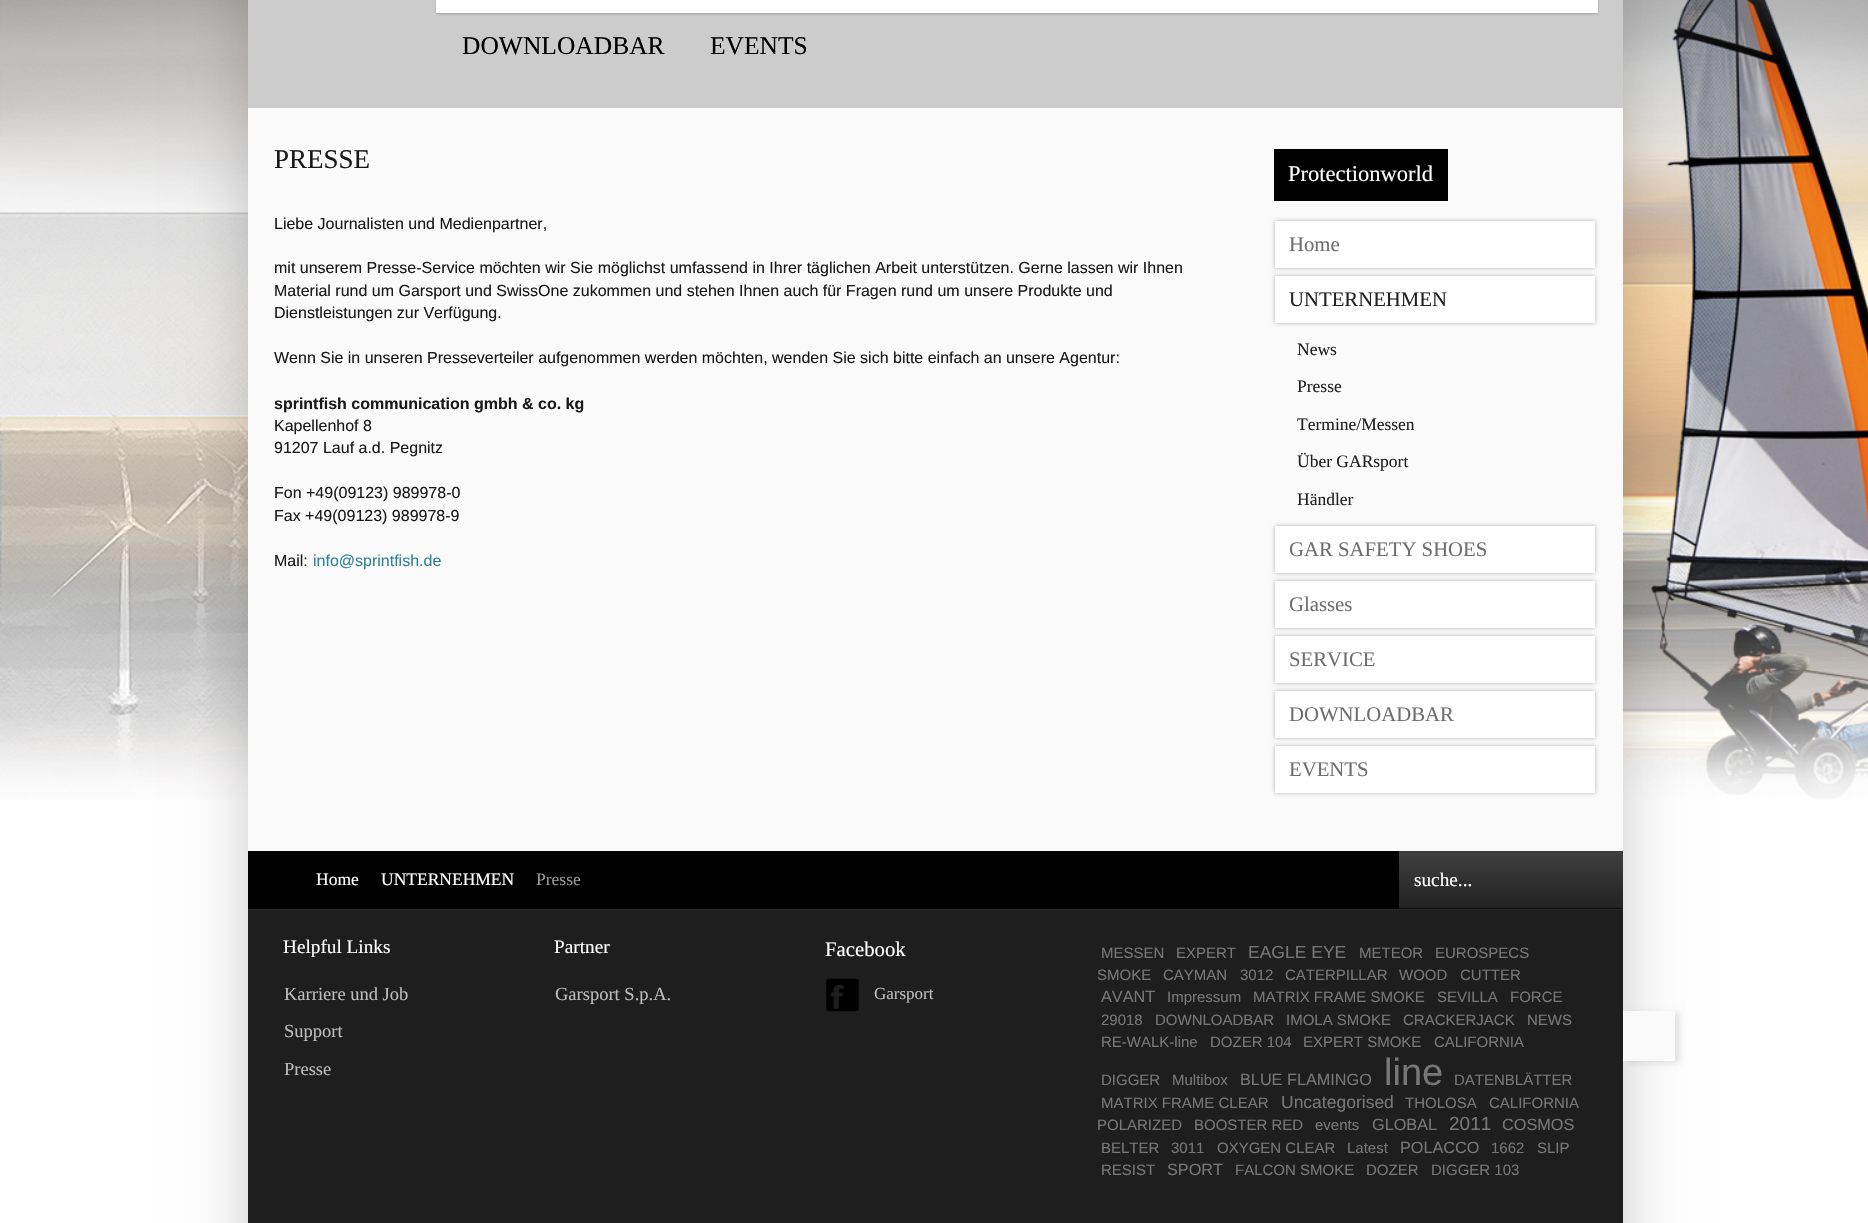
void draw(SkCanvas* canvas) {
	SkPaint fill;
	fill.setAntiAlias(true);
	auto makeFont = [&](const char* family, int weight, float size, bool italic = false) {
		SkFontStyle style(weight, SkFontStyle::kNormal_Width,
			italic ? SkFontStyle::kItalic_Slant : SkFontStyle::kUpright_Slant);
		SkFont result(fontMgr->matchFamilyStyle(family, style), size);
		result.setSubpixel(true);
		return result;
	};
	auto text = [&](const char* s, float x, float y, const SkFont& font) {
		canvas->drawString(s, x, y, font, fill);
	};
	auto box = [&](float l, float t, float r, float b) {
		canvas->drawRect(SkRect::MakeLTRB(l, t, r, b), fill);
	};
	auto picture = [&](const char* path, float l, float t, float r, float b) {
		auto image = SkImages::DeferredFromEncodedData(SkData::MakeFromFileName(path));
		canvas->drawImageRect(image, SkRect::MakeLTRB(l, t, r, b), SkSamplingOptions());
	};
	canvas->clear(0xFFFFFFFF);
	picture("image0.png", 0, 0, 1868, 800);
	fill.setColor(0x33000000);
	fill.setMaskFilter(SkMaskFilter::MakeBlur(kNormal_SkBlurStyle, 31));
	canvas->drawRect(SkRect::MakeLTRB(248, -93, 1623, 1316), fill);
	fill.setMaskFilter(nullptr);
	fill.setColor(0xFFFAFAFA);
	box(248, 108, 1623, 851);
	fill.setColor(0xFFCCCCCC);
	box(248, 0, 1623, 108);
	fill.setColor(0x33000000);
	fill.setMaskFilter(SkMaskFilter::MakeBlur(kNormal_SkBlurStyle, 1));
	canvas->drawRect(SkRect::MakeLTRB(436, -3, 1598, 14), fill);
	fill.setMaskFilter(nullptr);
	fill.setColor(0xFFFFFFFF);
	box(436, 0, 1598, 13);
	fill.setColor(0xFF000000);
	box(1274, 149, 1448, 201);
	fill.setColor(0xFFB2B2B2);
	fill.setMaskFilter(SkMaskFilter::MakeBlur(kNormal_SkBlurStyle, 2));
	canvas->drawRect(SkRect::MakeLTRB(1275, 221, 1595, 268), fill);
	fill.setMaskFilter(nullptr);
	fill.setColor(0xFFFFFFFF);
	box(1275, 221, 1595, 268);
	fill.setColor(0xFFB2B2B2);
	fill.setMaskFilter(SkMaskFilter::MakeBlur(kNormal_SkBlurStyle, 2));
	canvas->drawRect(SkRect::MakeLTRB(1275, 276, 1595, 323), fill);
	fill.setMaskFilter(nullptr);
	fill.setColor(0xFFFFFFFF);
	box(1275, 276, 1595, 323);
	fill.setColor(0xFFB2B2B2);
	fill.setMaskFilter(SkMaskFilter::MakeBlur(kNormal_SkBlurStyle, 2));
	canvas->drawRect(SkRect::MakeLTRB(1275, 526, 1595, 573), fill);
	fill.setMaskFilter(nullptr);
	fill.setColor(0xFFFFFFFF);
	box(1275, 526, 1595, 573);
	fill.setColor(0xFFB2B2B2);
	fill.setMaskFilter(SkMaskFilter::MakeBlur(kNormal_SkBlurStyle, 2));
	canvas->drawRect(SkRect::MakeLTRB(1275, 581, 1595, 628), fill);
	fill.setMaskFilter(nullptr);
	fill.setColor(0xFFFFFFFF);
	box(1275, 581, 1595, 628);
	fill.setColor(0xFFB2B2B2);
	fill.setMaskFilter(SkMaskFilter::MakeBlur(kNormal_SkBlurStyle, 2));
	canvas->drawRect(SkRect::MakeLTRB(1275, 636, 1595, 683), fill);
	fill.setMaskFilter(nullptr);
	fill.setColor(0xFFFFFFFF);
	box(1275, 636, 1595, 683);
	fill.setColor(0xFFB2B2B2);
	fill.setMaskFilter(SkMaskFilter::MakeBlur(kNormal_SkBlurStyle, 2));
	canvas->drawRect(SkRect::MakeLTRB(1275, 691, 1595, 738), fill);
	fill.setMaskFilter(nullptr);
	fill.setColor(0xFFFFFFFF);
	box(1275, 691, 1595, 738);
	fill.setColor(0xFFB2B2B2);
	fill.setMaskFilter(SkMaskFilter::MakeBlur(kNormal_SkBlurStyle, 2));
	canvas->drawRect(SkRect::MakeLTRB(1275, 746, 1595, 793), fill);
	fill.setMaskFilter(nullptr);
	fill.setColor(0xFFFFFFFF);
	box(1275, 746, 1595, 793);
	fill.setColor(0xFF000000);
	box(248, 851, 1399, 909);
	fill.setColor(0xFF282828);
	box(248, 909, 1623, 910);
	{
		const SkColor colors[] = {0xFF404040, 0xFF222222};
		const float stops[] = {0, 1};
		const SkPoint ends[] = {{1511, 851}, {1511, 908}};
		fill.setShader(SkGradientShader::MakeLinear(ends, colors, stops, 2, SkTileMode::kClamp));
		fill.setAlpha(255);
	}
	box(1399, 852, 1623, 908);
	fill.setShader(nullptr);
	fill.setColor(0xFF3A3A3A);
	box(1399, 851, 1623, 852);
	fill.setColor(0xFF0F0F0F);
	box(1399, 908, 1623, 909);
	fill.setColor(0xFF1E1E1E);
	box(248, 910, 1623, 1223);
	picture("image1.png", 826, 978, 859, 1012);
	fill.setColor(0x1A000000);
	fill.setMaskFilter(SkMaskFilter::MakeBlur(kNormal_SkBlurStyle, 3));
	canvas->drawRect(SkRect::MakeLTRB(1628, 1013, 1680, 1063), fill);
	fill.setMaskFilter(nullptr);
	fill.setColor(0xFFFAFAFA);
	box(1623, 1011, 1675, 1061);
	auto font1 = makeFont("Liberation Serif", 400, 25.5f);
	fill.setColor(0xFF000000);
	text("DOWNLOADBAR", 462, 54, font1);
	text("EVENTS", 710, 54, font1);
	auto font2 = makeFont("Liberation Serif", 400, 27);
	fill.setColor(0xFF191919);
	text("PRESSE", 274, 168, font2);
	auto font3 = makeFont("Liberation Sans", 400, 16);
	text("Liebe Journalisten und Medienpartner,", 274, 229, font3);
	text("mit unserem Presse-Service möchten wir Sie möglichst umfassend in Ihrer täglichen Arbeit unterstützen. Gerne lassen wir Ihnen", 274, 273, font3);
	text("Material rund um Garsport und SwissOne zukommen und stehen Ihnen auch für Fragen rund um unsere Produkte und", 274, 296, font3);
	text("Dienstleistungen zur Verfügung.", 274, 318, font3);
	text("Wenn Sie in unseren Presseverteiler aufgenommen werden möchten, wenden Sie sich bitte einfach an unsere Agentur:", 274, 363, font3);
	auto font4 = makeFont("Liberation Sans", 700, 16);
	text("sprintfish communication gmbh & co. kg", 274, 409, font4);
	text("Kapellenhof 8", 274, 431, font3);
	text("91207 Lauf a.d. Pegnitz", 274, 453, font3);
	text("Fon +49(09123) 989978-0", 274, 498, font3);
	text("Fax +49(09123) 989978-9", 274, 521, font3);
	text("Mail:", 274, 566, font3);
	fill.setColor(0xFF2F8395);
	text("info@sprintfish.de", 313, 566, font3);
	auto font5 = makeFont("Liberation Serif", 400, 22.5f);
	fill.setColor(0xFFFFFFFF);
	text("Protectionworld", 1288, 181, font5);
	auto font6 = makeFont("Liberation Serif", 400, 20.75f);
	fill.setColor(0xFF6E6E6E);
	text("Home", 1289, 251, font6);
	fill.setColor(0xFF212121);
	text("UNTERNEHMEN", 1289, 306, font6);
	auto font7 = makeFont("Liberation Serif", 400, 17.5f);
	text("News", 1297, 355, font7);
	text("Presse", 1297, 392, font7);
	text("Termine/Messen", 1297, 430, font7);
	text("Über GARsport", 1297, 467, font7);
	text("Händler", 1297, 505, font7);
	fill.setColor(0xFF6E6E6E);
	text("GAR SAFETY SHOES", 1289, 556, font6);
	text("Glasses", 1289, 611, font6);
	text("SERVICE", 1289, 666, font6);
	text("DOWNLOADBAR", 1289, 721, font6);
	text("EVENTS", 1289, 776, font6);
	fill.setColor(0xFFFFFFFF);
	text("Home", 316, 885, font7);
	text("UNTERNEHMEN", 381, 885, font7);
	fill.setColor(0xFF999999);
	text("Presse", 536, 885, font7);
	auto font8 = makeFont("Liberation Serif", 400, 19.25f);
	fill.setColor(0xFFFFFFFF);
	text("suche...", 1414, 886, font8);
	text("Helpful Links", 283, 953, font8);
	auto font9 = makeFont("Liberation Serif", 400, 18.5f);
	fill.setColor(0xFFBEBDBD);
	text("Karriere und Job", 284, 1000, font9);
	text("Support", 284, 1037, font9);
	text("Presse", 284, 1075, font9);
	fill.setColor(0xFFFFFFFF);
	text("Partner", 554, 953, font8);
	fill.setColor(0xFFBEBDBD);
	text("Garsport S.p.A.", 555, 1000, font9);
	fill.setColor(0xFFFFFFFF);
	text("Facebook", 825, 956, font6);
	auto font10 = makeFont("Liberation Serif", 400, 17);
	fill.setColor(0xFFBEBDBD);
	text("Garsport", 874, 999, font10);
	auto font11 = makeFont("Liberation Sans", 400, 15);
	fill.setColor(0xFF777777);
	text("MESSEN", 1101, 958, font11);
	text("EXPERT", 1176, 958, font11);
	auto font12 = makeFont("Liberation Sans", 400, 17.5f);
	text("EAGLE EYE", 1248, 958, font12);
	text("METEOR", 1359, 958, font11);
	text("EUROSPECS", 1435, 958, font11);
	text("SMOKE", 1097, 980, font11);
	text("CAYMAN", 1163, 980, font11);
	text("3012", 1240, 980, font11);
	text("CATERPILLAR", 1285, 980, font11);
	text("WOOD", 1399, 980, font11);
	text("CUTTER", 1460, 980, font11);
	auto font13 = makeFont("Liberation Sans", 400, 16.25f);
	text("AVANT", 1101, 1002, font13);
	text("Impressum", 1167, 1002, font11);
	text("MATRIX FRAME SMOKE", 1253, 1002, font11);
	text("SEVILLA", 1437, 1002, font11);
	text("FORCE", 1510, 1002, font11);
	text("29018", 1101, 1025, font11);
	text("DOWNLOADBAR", 1155, 1025, font11);
	text("IMOLA SMOKE", 1286, 1025, font11);
	text("CRACKERJACK", 1403, 1025, font11);
	text("NEWS", 1527, 1025, font11);
	text("RE-WALK-line", 1101, 1047, font11);
	text("DOZER 104", 1210, 1047, font11);
	text("EXPERT SMOKE", 1303, 1047, font11);
	text("CALIFORNIA", 1434, 1047, font11);
	text("DIGGER", 1101, 1085, font11);
	text("Multibox", 1172, 1085, font11);
	text("BLUE FLAMINGO", 1240, 1085, font13);
	auto font14 = makeFont("Liberation Sans", 400, 38);
	text("line", 1384, 1085, font14);
	text("DATENBLÄTTER", 1454, 1085, font11);
	text("MATRIX FRAME CLEAR", 1101, 1108, font11);
	text("Uncategorised", 1281, 1108, font12);
	text("THOLOSA", 1405, 1108, font11);
	text("CALIFORNIA", 1489, 1108, font11);
	text("POLARIZED", 1097, 1130, font11);
	text("BOOSTER RED", 1194, 1130, font11);
	text("events", 1315, 1130, font11);
	text("GLOBAL", 1372, 1130, font13);
	auto font15 = makeFont("Liberation Sans", 400, 19);
	text("2011", 1449, 1130, font15);
	text("COSMOS", 1502, 1130, font13);
	text("BELTER", 1101, 1153, font11);
	text("3011", 1171, 1153, font11);
	text("OXYGEN CLEAR", 1217, 1153, font11);
	text("Latest", 1347, 1153, font11);
	text("POLACCO", 1400, 1153, font13);
	text("1662", 1491, 1153, font11);
	text("SLIP", 1537, 1153, font11);
	text("RESIST", 1101, 1175, font11);
	text("SPORT", 1167, 1175, font13);
	text("FALCON SMOKE", 1235, 1175, font11);
	text("DOZER", 1366, 1175, font11);
	text("DIGGER 103", 1431, 1175, font11);
}
